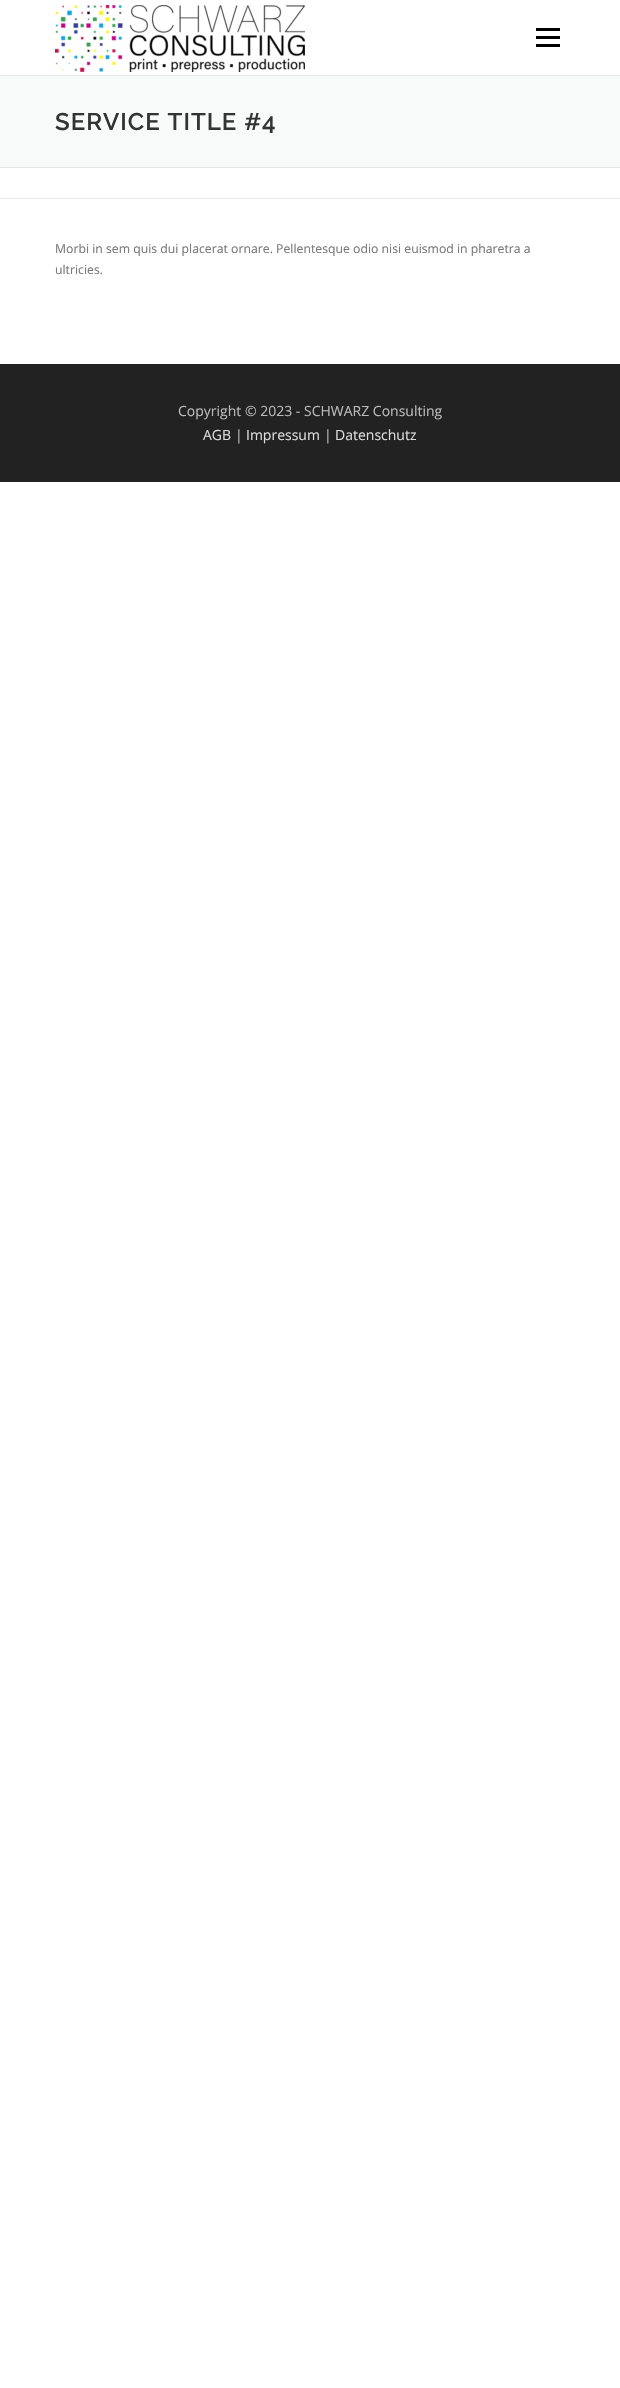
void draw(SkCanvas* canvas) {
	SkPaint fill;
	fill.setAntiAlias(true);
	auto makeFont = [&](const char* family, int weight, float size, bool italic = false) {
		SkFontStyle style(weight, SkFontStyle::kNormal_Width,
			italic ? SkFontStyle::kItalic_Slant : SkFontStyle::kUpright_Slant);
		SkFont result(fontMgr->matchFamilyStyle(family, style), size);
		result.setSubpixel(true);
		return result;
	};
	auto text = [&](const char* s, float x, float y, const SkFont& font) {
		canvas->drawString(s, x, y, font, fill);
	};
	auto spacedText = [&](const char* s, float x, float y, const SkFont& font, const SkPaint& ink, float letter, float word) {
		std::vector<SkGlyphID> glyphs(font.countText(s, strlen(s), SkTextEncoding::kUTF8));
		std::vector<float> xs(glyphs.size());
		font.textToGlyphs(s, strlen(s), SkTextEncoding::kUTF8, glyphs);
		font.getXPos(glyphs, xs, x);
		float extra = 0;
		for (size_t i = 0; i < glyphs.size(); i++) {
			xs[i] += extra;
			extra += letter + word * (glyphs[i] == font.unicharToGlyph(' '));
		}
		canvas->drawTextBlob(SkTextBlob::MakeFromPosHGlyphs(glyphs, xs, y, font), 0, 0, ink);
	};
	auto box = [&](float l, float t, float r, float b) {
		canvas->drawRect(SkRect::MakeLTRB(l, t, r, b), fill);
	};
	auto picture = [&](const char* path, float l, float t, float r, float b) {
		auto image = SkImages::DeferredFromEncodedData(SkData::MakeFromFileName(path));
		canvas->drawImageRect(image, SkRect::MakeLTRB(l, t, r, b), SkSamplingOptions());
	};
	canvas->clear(0xFFFFFFFF);
	picture("image0.png", 55, 5, 305, 72);
	fill.setColor(0xFF000000);
	box(536, 36, 560, 39);
	box(536, 28, 560, 31);
	box(536, 44, 560, 47);
	fill.setColor(0xFFF8F9F9);
	box(0, 76, 620, 167);
	fill.setColor(0xFFE9E9E9);
	box(0, 75, 620, 76);
	box(0, 167, 620, 168);
	box(0, 198, 620, 199);
	fill.setColor(0xFF222222);
	box(0, 364, 620, 482);
	auto font1 = makeFont("Raleway", 600, 24);
	fill.setColor(0xFF333333);
	spacedText("SERVICE TITLE #4", 55, 130, font1, fill, 1, 0);
	auto font2 = makeFont("Open Sans", 400, 12.25f);
	fill.setColor(0xFF777777);
	text("Morbi in sem quis dui placerat ornare. Pellentesque odio nisi euismod in pharetra a", 55, 253, font2);
	text("ultricies.", 55, 274, font2);
	auto font3 = makeFont("Open Sans", 400, 14);
	fill.setColor(0xFFBBBBBB);
	text("Copyright © 2023 - SCHWARZ Consulting", 178, 416, font3);
	fill.setColor(0xFFDDDDDD);
	text("AGB", 203, 440, font3);
	fill.setColor(0xFFBBBBBB);
	text("|", 235, 440, font3);
	fill.setColor(0xFFDDDDDD);
	text("Impressum", 246, 440, font3);
	fill.setColor(0xFFBBBBBB);
	text("|", 324, 440, font3);
	fill.setColor(0xFFDDDDDD);
	text("Datenschutz", 335, 440, font3);
}
